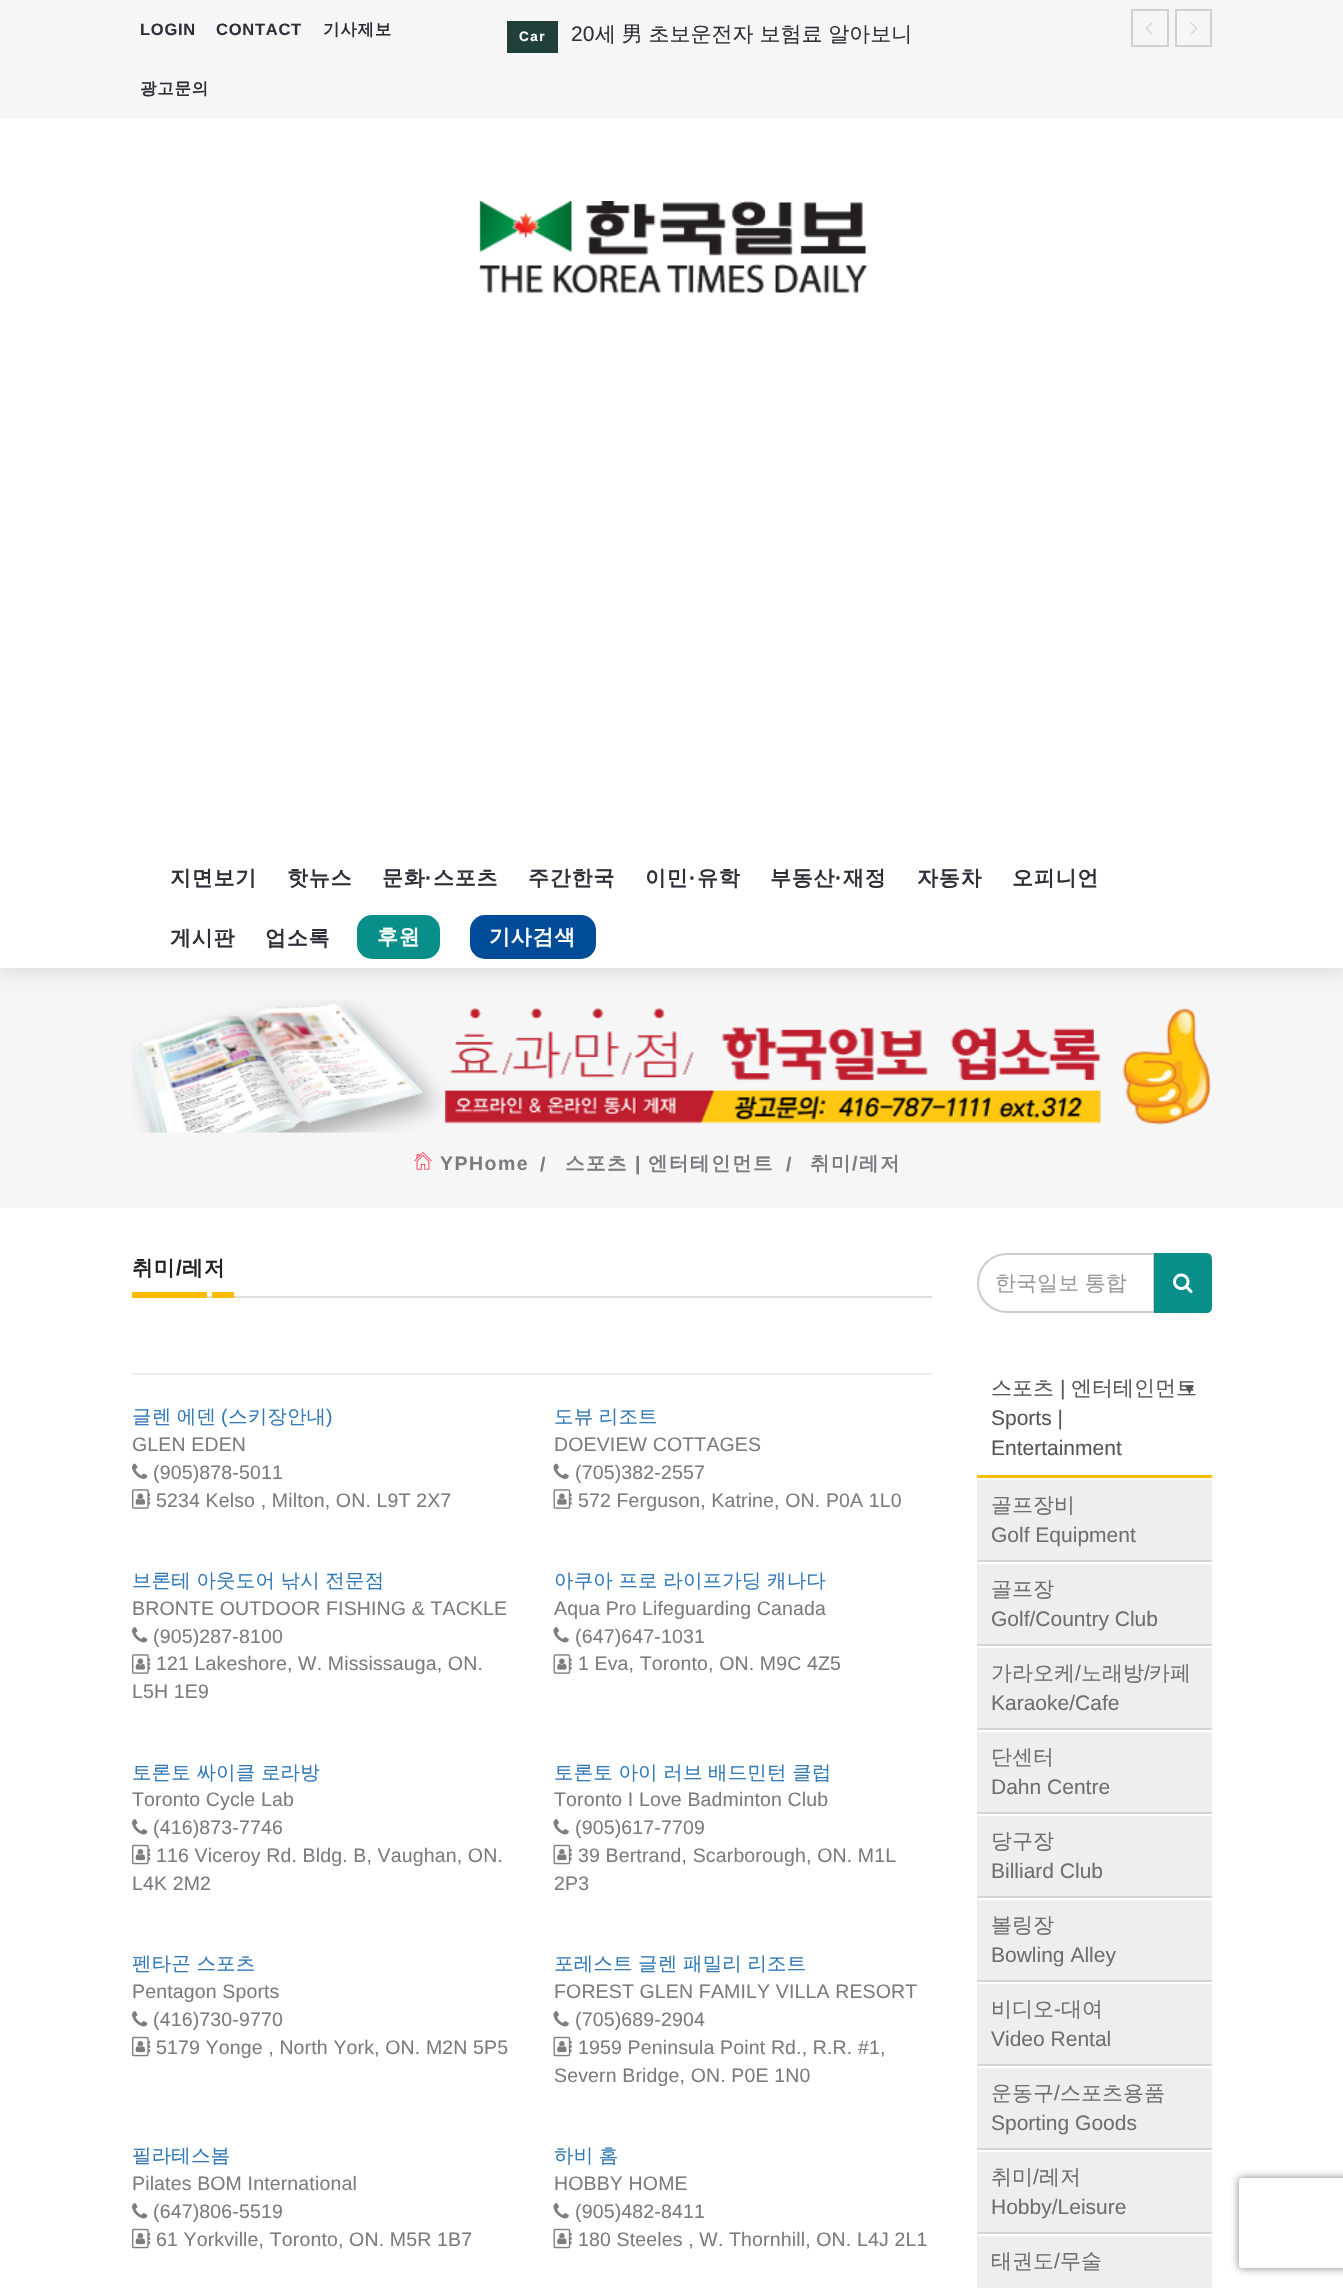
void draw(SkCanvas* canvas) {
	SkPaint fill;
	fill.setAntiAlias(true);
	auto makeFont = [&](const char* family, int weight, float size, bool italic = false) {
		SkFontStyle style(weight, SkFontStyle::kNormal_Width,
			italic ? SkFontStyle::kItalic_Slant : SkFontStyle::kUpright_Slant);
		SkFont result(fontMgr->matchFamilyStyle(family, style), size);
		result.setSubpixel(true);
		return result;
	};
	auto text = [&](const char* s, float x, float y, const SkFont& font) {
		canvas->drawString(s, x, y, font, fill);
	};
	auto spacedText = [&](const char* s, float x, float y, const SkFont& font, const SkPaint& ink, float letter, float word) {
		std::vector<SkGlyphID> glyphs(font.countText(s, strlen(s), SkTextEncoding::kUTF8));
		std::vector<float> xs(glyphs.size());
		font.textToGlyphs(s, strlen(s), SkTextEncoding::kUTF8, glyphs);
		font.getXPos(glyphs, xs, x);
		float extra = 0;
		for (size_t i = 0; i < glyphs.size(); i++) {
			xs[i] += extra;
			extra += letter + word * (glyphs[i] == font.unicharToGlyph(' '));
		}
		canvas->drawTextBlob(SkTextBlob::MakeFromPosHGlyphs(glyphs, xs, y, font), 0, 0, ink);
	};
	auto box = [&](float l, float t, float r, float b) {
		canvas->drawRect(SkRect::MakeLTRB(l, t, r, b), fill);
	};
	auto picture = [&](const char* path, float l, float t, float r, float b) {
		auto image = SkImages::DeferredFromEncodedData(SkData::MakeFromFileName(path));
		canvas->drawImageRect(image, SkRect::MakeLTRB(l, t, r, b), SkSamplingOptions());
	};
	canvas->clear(0xFFFFFFFF);
	fill.setColor(0xFFF6F6F6);
	box(0, 968, 1343, 1208);
	canvas->save();
	canvas->clipPath(SkPathBuilder(SkPathFillType::kEvenOdd).moveTo(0, 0).lineTo(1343, 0).lineTo(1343, 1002).lineTo(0, 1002).close().moveTo(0, 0).lineTo(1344, 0).lineTo(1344, 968).lineTo(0, 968).close().detach(), true);
	fill.setColor(0x26000000);
	fill.setMaskFilter(SkMaskFilter::MakeBlur(kNormal_SkBlurStyle, 11));
	canvas->drawRect(SkRect::MakeLTRB(0, 0, 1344, 968), fill);
	fill.setMaskFilter(nullptr);
	canvas->restore();
	fill.setColor(0xFFF6F6F6);
	box(0, 0, 1343, 119);
	fill.setColor(0xFF21403A);
	box(507, 21, 558, 53);
	fill.setStyle(SkPaint::kStroke_Style);
	fill.setStrokeWidth(2);
	fill.setColor(0xFFD1D1D1);
	canvas->drawRect(SkRect::MakeLTRB(1132, 10, 1168, 46), fill);
	picture("image0.png", 1145, 22, 1153, 35);
	canvas->drawRect(SkRect::MakeLTRB(1176, 10, 1211, 46), fill);
	picture("image1.png", 1190, 22, 1198, 35);
	picture("image2.png", 479, 201, 868, 293);
	fill.setStyle(SkPaint::kFill_Style);
	fill.setColor(0xFFFFFFFF);
	box(132, 967, 1212, 968);
	fill.setColor(0xFF088F8A);
	canvas->drawRoundRect(SkRect::MakeLTRB(358, 916, 439, 958), 14, 14, fill);
	fill.setStyle(SkPaint::kStroke_Style);
	canvas->drawRoundRect(SkRect::MakeLTRB(358, 916, 439, 958), 14, 14, fill);
	fill.setStyle(SkPaint::kFill_Style);
	fill.setColor(0xFF004C99);
	canvas->drawRoundRect(SkRect::MakeLTRB(471, 916, 595, 958), 14, 14, fill);
	fill.setStyle(SkPaint::kStroke_Style);
	canvas->drawRoundRect(SkRect::MakeLTRB(471, 916, 595, 958), 14, 14, fill);
	picture("image3.png", 132, 1000, 1211, 1133);
	picture("image4.png", 414, 1152, 432, 1170);
	fill.setStyle(SkPaint::kFill_Style);
	fill.setColor(0xFFDDDDDD);
	box(207, 1296, 932, 1298);
	fill.setColor(0xFFFBBC05);
	box(132, 1292, 207, 1298);
	box(212, 1292, 234, 1298);
	fill.setColor(0xFFEEEEEE);
	box(132, 1373, 932, 1375);
	picture("image5.png", 132, 1463, 148, 1479);
	picture("image6.png", 132, 1489, 151, 1509);
	picture("image7.png", 553, 1463, 569, 1479);
	picture("image8.png", 553, 1489, 572, 1509);
	picture("image9.png", 132, 1627, 148, 1643);
	picture("image6.png", 132, 1654, 151, 1674);
	picture("image10.png", 553, 1627, 569, 1643);
	picture("image8.png", 553, 1654, 572, 1674);
	picture("image9.png", 132, 1819, 148, 1835);
	picture("image11.png", 132, 1844, 151, 1865);
	picture("image10.png", 553, 1819, 569, 1835);
	picture("image12.png", 553, 1844, 572, 1865);
	picture("image9.png", 132, 2011, 148, 2027);
	picture("image11.png", 132, 2036, 151, 2057);
	picture("image10.png", 553, 2011, 569, 2027);
	picture("image12.png", 553, 2036, 572, 2057);
	picture("image9.png", 132, 2203, 148, 2219);
	picture("image11.png", 132, 2228, 151, 2249);
	picture("image10.png", 553, 2203, 569, 2219);
	picture("image12.png", 553, 2228, 572, 2249);
	fill.setStyle(SkPaint::kStroke_Style);
	fill.setColor(0xFFCCCCCC);
	canvas->drawPath(SkPathBuilder().moveTo(1007, 1254).lineTo(1154, 1254).lineTo(1154, 1312).lineTo(1007, 1312).cubicTo(991, 1312, 978, 1299, 978, 1283).cubicTo(978, 1267, 991, 1254, 1007, 1254).close().detach(), fill);
	fill.setStyle(SkPaint::kFill_Style);
	fill.setColor(0xFF088F8A);
	canvas->drawPath(SkPathBuilder().moveTo(1155, 1254).lineTo(1206, 1254).cubicTo(1209, 1254, 1211, 1256, 1211, 1259).lineTo(1211, 1307).cubicTo(1211, 1310, 1209, 1312, 1206, 1312).lineTo(1155, 1312).close().detach(), fill);
	fill.setStyle(SkPaint::kStroke_Style);
	canvas->drawPath(SkPathBuilder().moveTo(1155, 1254).lineTo(1206, 1254).cubicTo(1209, 1254, 1211, 1256, 1211, 1259).lineTo(1211, 1307).cubicTo(1211, 1310, 1209, 1312, 1206, 1312).lineTo(1155, 1312).close().detach(), fill);
	picture("image13.png", 1173, 1273, 1193, 1293);
	fill.setStyle(SkPaint::kFill_Style);
	fill.setColor(0xFFFBBC05);
	box(977, 1475, 1212, 1478);
	fill.setColor(0xFFEEEEEE);
	box(977, 1480, 1212, 1560);
	fill.setColor(0xFFD5D5D5);
	box(977, 1560, 1212, 1562);
	fill.setColor(0xFFEEEEEE);
	box(977, 1564, 1212, 1644);
	fill.setColor(0xFFD5D5D5);
	box(977, 1644, 1212, 1646);
	fill.setColor(0xFFEEEEEE);
	box(977, 1648, 1212, 1728);
	fill.setColor(0xFFD5D5D5);
	box(977, 1728, 1212, 1730);
	fill.setColor(0xFFEEEEEE);
	box(977, 1732, 1212, 1812);
	fill.setColor(0xFFD5D5D5);
	box(977, 1812, 1212, 1814);
	fill.setColor(0xFFEEEEEE);
	box(977, 1816, 1212, 1896);
	fill.setColor(0xFFD5D5D5);
	box(977, 1896, 1212, 1898);
	fill.setColor(0xFFEEEEEE);
	box(977, 1900, 1212, 1980);
	fill.setColor(0xFFD5D5D5);
	box(977, 1980, 1212, 1982);
	fill.setColor(0xFFEEEEEE);
	box(977, 1984, 1212, 2064);
	fill.setColor(0xFFD5D5D5);
	box(977, 2064, 1212, 2066);
	fill.setColor(0xFFEEEEEE);
	box(977, 2068, 1212, 2148);
	fill.setColor(0xFFD5D5D5);
	box(977, 2148, 1212, 2150);
	fill.setColor(0xFFEEEEEE);
	box(977, 2152, 1212, 2232);
	fill.setColor(0xFFD5D5D5);
	box(977, 2232, 1212, 2234);
	fill.setColor(0xFFEEEEEE);
	box(977, 2236, 1212, 2288);
	canvas->save();
	canvas->clipPath(SkPathBuilder(SkPathFillType::kEvenOdd).moveTo(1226, 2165).lineTo(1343, 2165).lineTo(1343, 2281).lineTo(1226, 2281).close().moveTo(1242, 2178).lineTo(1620, 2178).cubicTo(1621.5f, 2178, 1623, 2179.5f, 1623, 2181).lineTo(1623, 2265).cubicTo(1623, 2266.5f, 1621.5f, 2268, 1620, 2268).lineTo(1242, 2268).cubicTo(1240.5f, 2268, 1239, 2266.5f, 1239, 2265).lineTo(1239, 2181).cubicTo(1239, 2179.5f, 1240.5f, 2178, 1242, 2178).close().detach(), true);
	fill.setColor(0xFF808080);
	fill.setMaskFilter(SkMaskFilter::MakeBlur(kNormal_SkBlurStyle, 4));
	canvas->drawRoundRect(SkRect::MakeLTRB(1239, 2178, 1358, 2268), 3, 3, fill);
	fill.setMaskFilter(nullptr);
	canvas->restore();
	auto font1 = makeFont("Liberation Sans", 700, 16.5f);
	fill.setColor(0xFF2D3038);
	spacedText("LOGIN", 140, 35, font1, fill, 0.75f, 0);
	spacedText("CONTACT", 216, 35, font1, fill, 0.75f, 0);
	auto font2 = makeFont("WenQuanYi Zen Hei", 700, 16.5f);
	spacedText("기사제보", 323, 35, font2, fill, 0.75f, 0);
	spacedText("광고문의", 140, 94, font2, fill, 0.75f, 0);
	auto font3 = makeFont("Liberation Sans", 700, 13.5f);
	fill.setColor(0xFFFFFFFF);
	spacedText("Car", 519, 41, font3, fill, 1.5f, 0);
	auto font4 = makeFont("Liberation Sans", 400, 21);
	fill.setColor(0xFF2D3038);
	text("20", 571, 41, font4);
	auto font5 = makeFont("WenQuanYi Zen Hei", 500, 21);
	spacedText("세 男 초보운전자 보험료 알아보니", 595, 41, font5, fill, 0, -0.5f);
	auto font6 = makeFont("WenQuanYi Zen Hei", 700, 21);
	spacedText("지면보기", 170, 885, font6, fill, 0.75f, 0);
	spacedText("핫뉴스", 287, 885, font6, fill, 0.75f, 0);
	spacedText("문화", 382, 885, font6, fill, 0.75f, 0);
	auto font7 = makeFont("Liberation Sans", 700, 21);
	spacedText("·", 425, 885, font7, fill, 0.75f, 0);
	spacedText("스포츠", 433, 885, font6, fill, 0.75f, 0);
	spacedText("주간한국", 528, 885, font6, fill, 0.75f, 0);
	spacedText("이민", 645, 885, font6, fill, 0.75f, 0);
	spacedText("·", 689, 885, font7, fill, 0.75f, 0);
	spacedText("유학", 697, 885, font6, fill, 0.75f, 0);
	spacedText("부동산", 770, 885, font6, fill, 0.75f, 0);
	spacedText("·", 835, 885, font7, fill, 0.75f, 0);
	spacedText("재정", 843, 885, font6, fill, 0.75f, 0);
	spacedText("자동차", 917, 885, font6, fill, 0.75f, 0);
	spacedText("오피니언", 1012, 885, font6, fill, 0.75f, 0);
	spacedText("게시판", 170, 945, font6, fill, 0.75f, 0);
	spacedText("업소록", 265, 945, font6, fill, 0.75f, 0);
	fill.setColor(0xFFFFFFFF);
	spacedText("후원", 377, 944, font6, fill, 0.75f, 0);
	spacedText("기사검색", 489, 944, font6, fill, 0.75f, 0);
	auto font8 = makeFont("Liberation Sans", 700, 19.5f);
	fill.setColor(0xFF797D80);
	spacedText("YPHome", 440, 1170, font8, fill, 1.5f, 0);
	spacedText("/", 540, 1171, font8, fill, 1.5f, 0);
	auto font9 = makeFont("WenQuanYi Zen Hei", 700, 19.5f);
	spacedText("스포츠", 565, 1170, font9, fill, 1.5f, 0);
	spacedText("|", 635, 1170, font8, fill, 1.5f, 0);
	spacedText("엔터테인먼트", 648, 1170, font9, fill, 1.5f, 0);
	spacedText("/", 786, 1171, font8, fill, 1.5f, 0);
	spacedText("취미", 810, 1170, font9, fill, 1.5f, 0);
	spacedText("/", 852, 1170, font8, fill, 1.5f, 0);
	spacedText("레저", 859, 1170, font9, fill, 1.5f, 0);
	fill.setColor(0xFF222222);
	spacedText("취미", 132, 1275, font6, fill, 0.75f, 0);
	spacedText("/", 176, 1275, font7, fill, 0.75f, 0);
	spacedText("레저", 182, 1275, font6, fill, 0.75f, 0);
	auto font10 = makeFont("WenQuanYi Zen Hei", 500, 19.5f);
	fill.setColor(0xFF337AB7);
	spacedText("글렌 에덴", 132, 1423, font10, fill, 0.15f, -0.5f);
	auto font11 = makeFont("Liberation Sans", 400, 19.5f);
	spacedText("(", 221, 1423, font11, fill, 0.15f, 0);
	spacedText("스키장안내", 228, 1423, font10, fill, 0.15f, 0);
	spacedText(")", 326, 1423, font11, fill, 0.15f, 0);
	fill.setColor(0xFF797D80);
	spacedText("GLEN EDEN", 132, 1451, font11, fill, 0.15f, 0);
	spacedText("(905)878-5011", 153, 1479, font11, fill, 0.15f, 0);
	spacedText("5234 Kelso , Milton, ON. L9T 2X7", 156, 1507, font11, fill, 0.15f, 0);
	fill.setColor(0xFF337AB7);
	spacedText("도뷰 리조트", 554, 1423, font10, fill, 0.15f, -0.5f);
	fill.setColor(0xFF797D80);
	spacedText("DOEVIEW COTTAGES", 554, 1451, font11, fill, 0.15f, 0);
	spacedText("(705)382-2557", 575, 1479, font11, fill, 0.15f, 0);
	spacedText("572 Ferguson, Katrine, ON. P0A 1L0", 578, 1507, font11, fill, 0.15f, 0);
	fill.setColor(0xFF337AB7);
	spacedText("브론테 아웃도어 낚시 전문점", 132, 1587, font10, fill, 0.15f, -0.5f);
	fill.setColor(0xFF797D80);
	spacedText("BRONTE OUTDOOR FISHING & TACKLE", 132, 1615, font11, fill, 0.15f, 0);
	spacedText("(905)287-8100", 153, 1643, font11, fill, 0.15f, 0);
	spacedText("121 Lakeshore, W. Mississauga, ON.", 156, 1670, font11, fill, 0.15f, 0);
	spacedText("L5H 1E9", 132, 1698, font11, fill, 0.15f, 0);
	fill.setColor(0xFF337AB7);
	spacedText("아쿠아 프로 라이프가딩 캐나다", 554, 1587, font10, fill, 0.15f, -0.5f);
	fill.setColor(0xFF797D80);
	spacedText("Aqua Pro Lifeguarding Canada", 554, 1615, font11, fill, 0.15f, 0);
	spacedText("(647)647-1031", 575, 1643, font11, fill, 0.15f, 0);
	spacedText("1 Eva, Toronto, ON. M9C 4Z5", 578, 1670, font11, fill, 0.15f, 0);
	fill.setColor(0xFF337AB7);
	spacedText("토론토 싸이클 로라방", 132, 1779, font10, fill, 0.15f, -0.5f);
	fill.setColor(0xFF797D80);
	spacedText("Toronto Cycle Lab", 132, 1806, font11, fill, 0.15f, 0);
	spacedText("(416)873-7746", 153, 1834, font11, fill, 0.15f, 0);
	spacedText("116 Viceroy Rd. Bldg. B, Vaughan, ON.", 156, 1862, font11, fill, 0.15f, 0);
	spacedText("L4K 2M2", 132, 1890, font11, fill, 0.15f, 0);
	fill.setColor(0xFF337AB7);
	spacedText("토론토 아이 러브 배드민턴 클럽", 554, 1779, font10, fill, 0.15f, -0.5f);
	fill.setColor(0xFF797D80);
	spacedText("Toronto I Love Badminton Club", 554, 1806, font11, fill, 0.15f, 0);
	spacedText("(905)617-7709", 575, 1834, font11, fill, 0.15f, 0);
	spacedText("39 Bertrand, Scarborough, ON. M1L", 578, 1862, font11, fill, 0.15f, 0);
	spacedText("2P3", 554, 1890, font11, fill, 0.15f, 0);
	fill.setColor(0xFF337AB7);
	spacedText("펜타곤 스포츠", 132, 1970, font10, fill, 0.15f, -0.5f);
	fill.setColor(0xFF797D80);
	spacedText("Pentagon Sports", 132, 1998, font11, fill, 0.15f, 0);
	spacedText("(416)730-9770", 153, 2026, font11, fill, 0.15f, 0);
	spacedText("5179 Yonge , North York, ON. M2N 5P5", 156, 2054, font11, fill, 0.15f, 0);
	fill.setColor(0xFF337AB7);
	spacedText("포레스트 글렌", 554, 1970, font10, fill, 0.15f, -0.5f);
	spacedText("패밀리 리조트", 683, 1970, font10, fill, 0.15f, -0.5f);
	fill.setColor(0xFF797D80);
	spacedText("FOREST GLEN FAMILY VILLA RESORT", 554, 1998, font11, fill, 0.15f, 0);
	spacedText("(705)689-2904", 575, 2026, font11, fill, 0.15f, 0);
	spacedText("1959 Peninsula Point Rd., R.R. #1,", 578, 2054, font11, fill, 0.15f, 0);
	spacedText("Severn Bridge, ON. P0E 1N0", 554, 2082, font11, fill, 0.15f, 0);
	fill.setColor(0xFF337AB7);
	spacedText("필라테스봄", 132, 2162, font10, fill, 0.15f, 0);
	fill.setColor(0xFF797D80);
	spacedText("Pilates BOM International", 132, 2190, font11, fill, 0.15f, 0);
	spacedText("(647)806-5519", 153, 2218, font11, fill, 0.15f, 0);
	spacedText("61 Yorkville, Toronto, ON. M5R 1B7", 156, 2246, font11, fill, 0.15f, 0);
	fill.setColor(0xFF337AB7);
	spacedText("하비 홈", 554, 2162, font10, fill, 0.15f, -0.5f);
	fill.setColor(0xFF797D80);
	spacedText("HOBBY HOME", 554, 2190, font11, fill, 0.15f, 0);
	spacedText("(905)482-8411", 575, 2218, font11, fill, 0.15f, 0);
	spacedText("180 Steeles , W. Thornhill, ON. L4J 2L1", 578, 2246, font11, fill, 0.15f, 0);
	fill.setColor(0xFF999999);
	spacedText("한국일보 통합", 995, 1290, font5, fill, 0, -0.5f);
	fill.setColor(0xFF565656);
	text("스포츠", 991, 1395, font5);
	text("|", 1060, 1395, font4);
	text("엔터테인먼트", 1071, 1395, font5);
	auto font12 = makeFont("Liberation Sans", 400, 15);
	text("▼", 1182, 1394, font12);
	text("Sports |", 991, 1425, font4);
	text("Entertainment", 991, 1455, font4);
	fill.setColor(0xFF6F6F6F);
	text("골프장비", 991, 1512, font5);
	text("Golf Equipment", 991, 1542, font4);
	text("골프장", 991, 1596, font5);
	text("Golf/Country Club", 991, 1626, font4);
	text("가라오케", 991, 1680, font5);
	text("/", 1075, 1680, font4);
	text("노래방", 1081, 1680, font5);
	text("/", 1144, 1680, font4);
	text("카페", 1149, 1680, font5);
	text("Karaoke/Cafe", 991, 1710, font4);
	text("단센터", 991, 1764, font5);
	text("Dahn Centre", 991, 1794, font4);
	text("당구장", 991, 1848, font5);
	text("Billiard Club", 991, 1878, font4);
	text("볼링장", 991, 1932, font5);
	text("Bowling Alley", 991, 1962, font4);
	text("비디오", 991, 2016, font5);
	text("-", 1054, 2016, font4);
	text("대여", 1061, 2016, font5);
	text("Video Rental", 991, 2046, font4);
	text("운동구", 991, 2100, font5);
	text("/", 1054, 2100, font4);
	text("스포츠용품", 1060, 2100, font5);
	text("Sporting Goods", 991, 2130, font4);
	text("취미", 991, 2184, font5);
	text("/", 1033, 2184, font4);
	text("레저", 1039, 2184, font5);
	text("Hobby/Leisure", 991, 2214, font4);
	text("태권도", 991, 2268, font5);
	text("/", 1054, 2268, font4);
	text("무술", 1060, 2268, font5);
}
